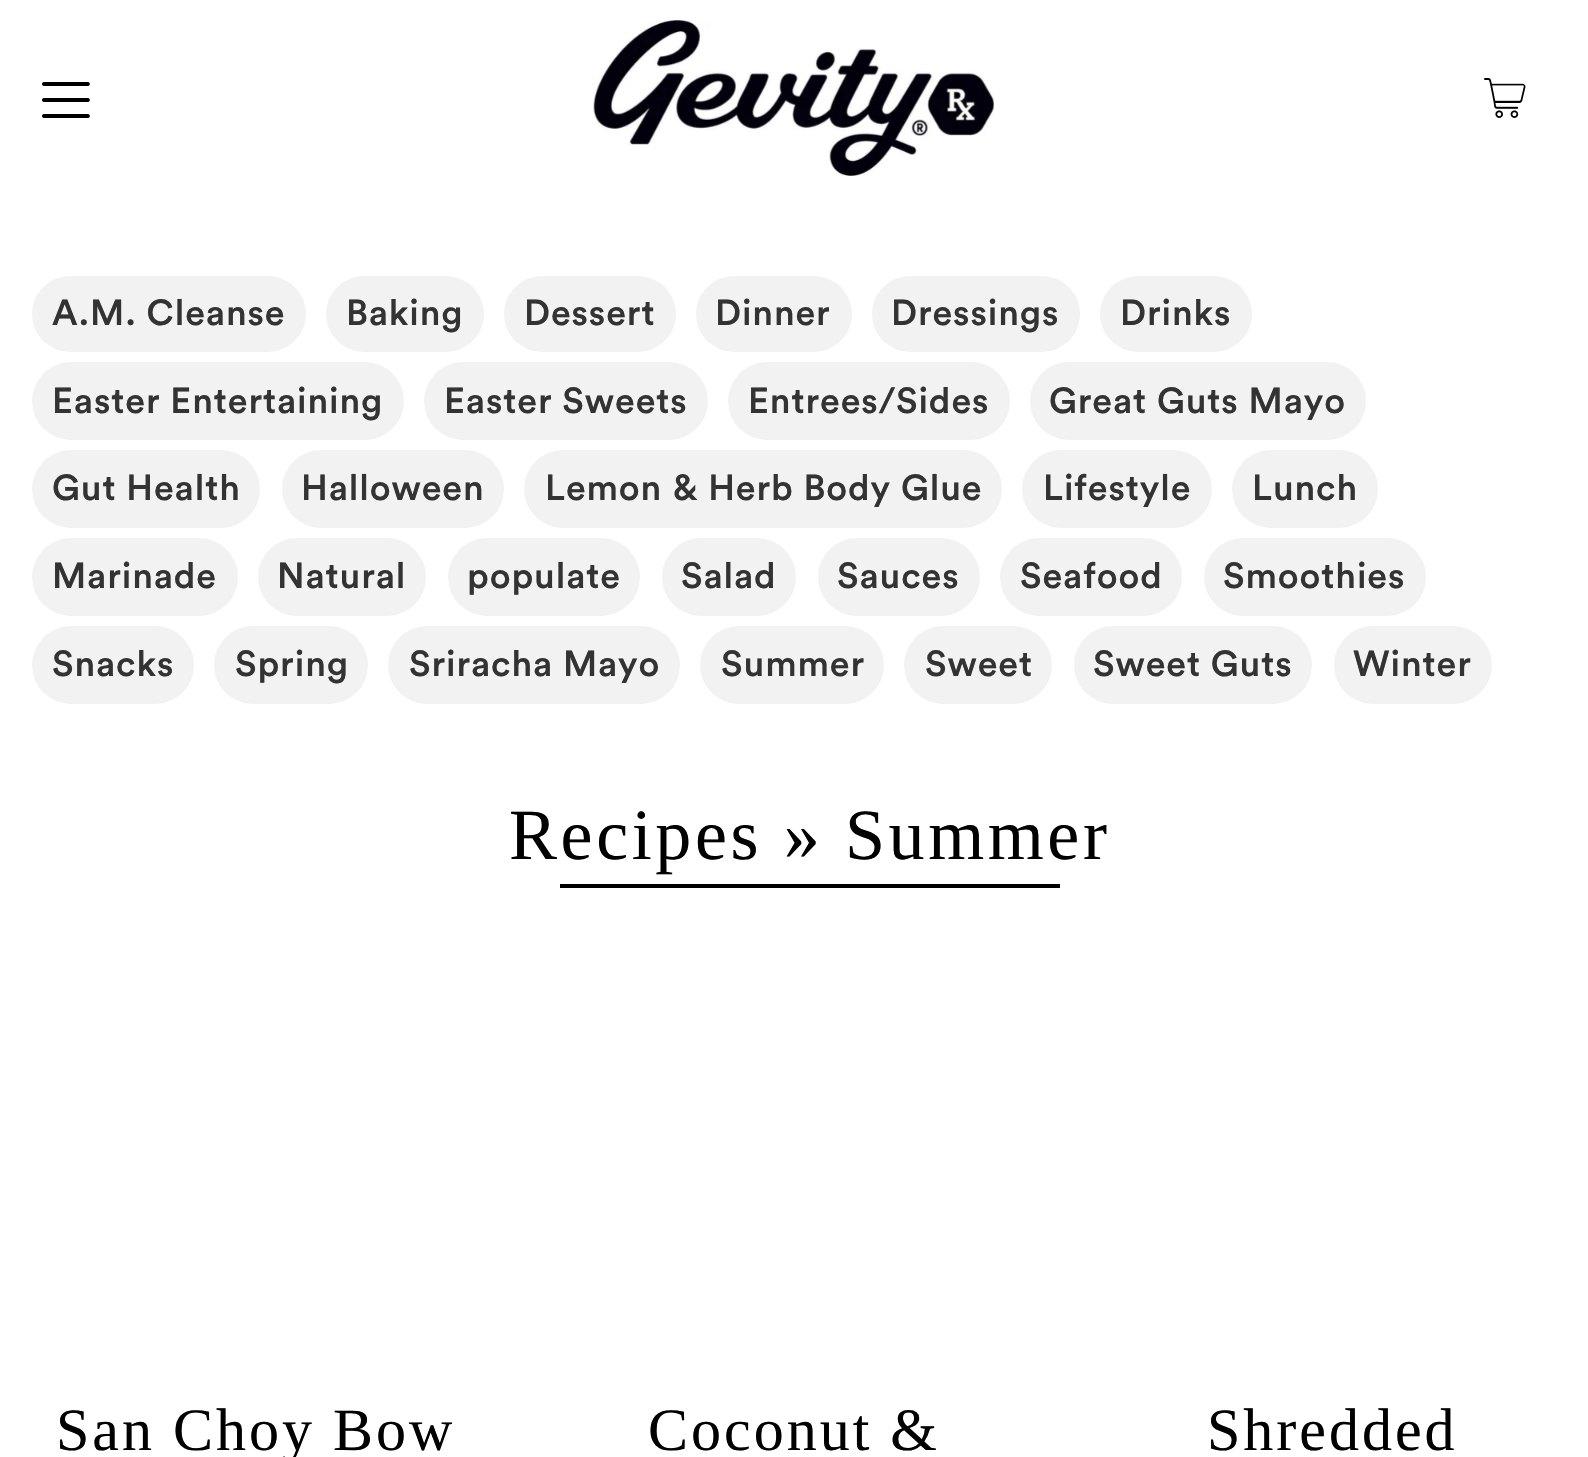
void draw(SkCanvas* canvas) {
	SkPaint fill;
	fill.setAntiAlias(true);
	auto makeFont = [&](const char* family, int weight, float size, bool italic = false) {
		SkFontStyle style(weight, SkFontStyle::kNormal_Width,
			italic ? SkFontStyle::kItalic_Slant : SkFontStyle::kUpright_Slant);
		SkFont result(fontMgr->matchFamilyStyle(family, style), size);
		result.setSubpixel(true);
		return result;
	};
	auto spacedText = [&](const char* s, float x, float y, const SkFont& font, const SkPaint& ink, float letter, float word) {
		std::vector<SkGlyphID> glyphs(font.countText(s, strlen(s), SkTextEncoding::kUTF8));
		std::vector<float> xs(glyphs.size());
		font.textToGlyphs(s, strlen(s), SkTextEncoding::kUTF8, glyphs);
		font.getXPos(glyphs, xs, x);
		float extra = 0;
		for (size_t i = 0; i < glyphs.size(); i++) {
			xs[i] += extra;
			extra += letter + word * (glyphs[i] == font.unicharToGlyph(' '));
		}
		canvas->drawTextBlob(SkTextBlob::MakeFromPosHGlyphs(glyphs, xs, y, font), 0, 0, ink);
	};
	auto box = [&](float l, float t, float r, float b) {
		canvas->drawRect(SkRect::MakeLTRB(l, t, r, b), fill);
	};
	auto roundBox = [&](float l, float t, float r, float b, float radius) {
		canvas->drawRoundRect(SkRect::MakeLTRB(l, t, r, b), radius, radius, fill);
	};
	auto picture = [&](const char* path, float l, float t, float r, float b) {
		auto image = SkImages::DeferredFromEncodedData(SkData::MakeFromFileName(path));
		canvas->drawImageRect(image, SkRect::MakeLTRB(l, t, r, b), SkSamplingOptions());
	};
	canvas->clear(0xFFFFFFFF);
	picture("image0.png", 42, 82, 90, 118);
	picture("image1.png", 593, 20, 994, 176);
	picture("image2.png", 1484, 78, 1526, 118);
	fill.setColor(0xFFF2F2F2);
	roundBox(32, 276, 306, 352, 38);
	roundBox(326, 276, 484, 352, 38);
	roundBox(504, 276, 676, 352, 38);
	roundBox(696, 276, 852, 352, 38);
	roundBox(872, 276, 1080, 352, 38);
	roundBox(1100, 276, 1252, 352, 38);
	roundBox(32, 362, 404, 440, 39);
	roundBox(424, 362, 708, 440, 39);
	roundBox(728, 362, 1010, 440, 39);
	roundBox(1030, 362, 1366, 440, 39);
	roundBox(32, 450, 260, 528, 39);
	roundBox(282, 450, 504, 528, 39);
	roundBox(524, 450, 1002, 528, 39);
	roundBox(1022, 450, 1212, 528, 39);
	roundBox(1232, 450, 1378, 528, 39);
	roundBox(32, 538, 238, 616, 39);
	roundBox(258, 538, 426, 616, 39);
	roundBox(448, 538, 640, 616, 39);
	roundBox(662, 538, 796, 616, 39);
	roundBox(818, 538, 980, 616, 39);
	roundBox(1000, 538, 1182, 616, 39);
	roundBox(1204, 538, 1426, 616, 39);
	roundBox(32, 626, 194, 704, 39);
	roundBox(214, 626, 368, 704, 39);
	roundBox(388, 626, 680, 704, 39);
	roundBox(700, 626, 884, 704, 39);
	roundBox(904, 626, 1052, 704, 39);
	roundBox(1074, 626, 1312, 704, 39);
	roundBox(1334, 626, 1492, 704, 39);
	fill.setColor(0xFF000000);
	box(560, 884, 1060, 888);
	auto font1 = makeFont("Circular", 500, 36);
	fill.setColor(0xFF333333);
	spacedText("A.M. Cleanse", 52, 325, font1, fill, 0.9f, 0);
	spacedText("Baking", 346, 325, font1, fill, 0.9f, 0);
	spacedText("Dessert", 524, 325, font1, fill, 0.9f, 0);
	spacedText("Dinner", 715, 325, font1, fill, 0.9f, 0);
	spacedText("Dressings", 891, 325, font1, fill, 0.9f, 0);
	spacedText("Drinks", 1120, 325, font1, fill, 0.9f, 0);
	spacedText("Easter Entertaining", 52, 413, font1, fill, 0.9f, 0);
	spacedText("Easter Sweets", 444, 413, font1, fill, 0.9f, 0);
	spacedText("Entrees/Sides", 748, 413, font1, fill, 0.9f, 0);
	spacedText("Great Guts Mayo", 1049, 413, font1, fill, 0.9f, 0);
	spacedText("Gut Health", 52, 500, font1, fill, 0.9f, 0);
	spacedText("Halloween", 301, 500, font1, fill, 0.9f, 0);
	spacedText("Lemon & Herb Body Glue", 545, 500, font1, fill, 0.9f, 0);
	spacedText("Lifestyle", 1043, 500, font1, fill, 0.9f, 0);
	spacedText("Lunch", 1252, 500, font1, fill, 0.9f, 0);
	spacedText("Marinade", 52, 588, font1, fill, 0.9f, 0);
	spacedText("Natural", 277, 588, font1, fill, 0.9f, 0);
	spacedText("populate", 467, 588, font1, fill, 0.9f, 0);
	spacedText("Salad", 681, 588, font1, fill, 0.9f, 0);
	spacedText("Sauces", 837, 588, font1, fill, 0.9f, 0);
	spacedText("Seafood", 1020, 588, font1, fill, 0.9f, 0);
	spacedText("Smoothies", 1223, 588, font1, fill, 0.9f, 0);
	spacedText("Snacks", 52, 676, font1, fill, 0.9f, 0);
	spacedText("Spring", 235, 676, font1, fill, 0.9f, 0);
	spacedText("Sriracha Mayo", 409, 676, font1, fill, 0.9f, 0);
	spacedText("Summer", 721, 676, font1, fill, 0.9f, 0);
	spacedText("Sweet", 925, 676, font1, fill, 0.9f, 0);
	spacedText("Sweet Guts", 1093, 676, font1, fill, 0.9f, 0);
	spacedText("Winter", 1353, 676, font1, fill, 0.9f, 0);
	auto font2 = makeFont("Liberation Serif", 400, 72);
	fill.setColor(0xFF000000);
	spacedText("Recipes » Summer", 509, 859, font2, fill, 3.6f, 0);
	auto font3 = makeFont("Liberation Serif", 400, 60);
	spacedText("San Choy Bow", 56, 1450, font3, fill, 3, 0);
	spacedText("Coconut &", 648, 1450, font3, fill, 3, 0);
	spacedText("Shredded", 1207, 1450, font3, fill, 3, 0);
}
